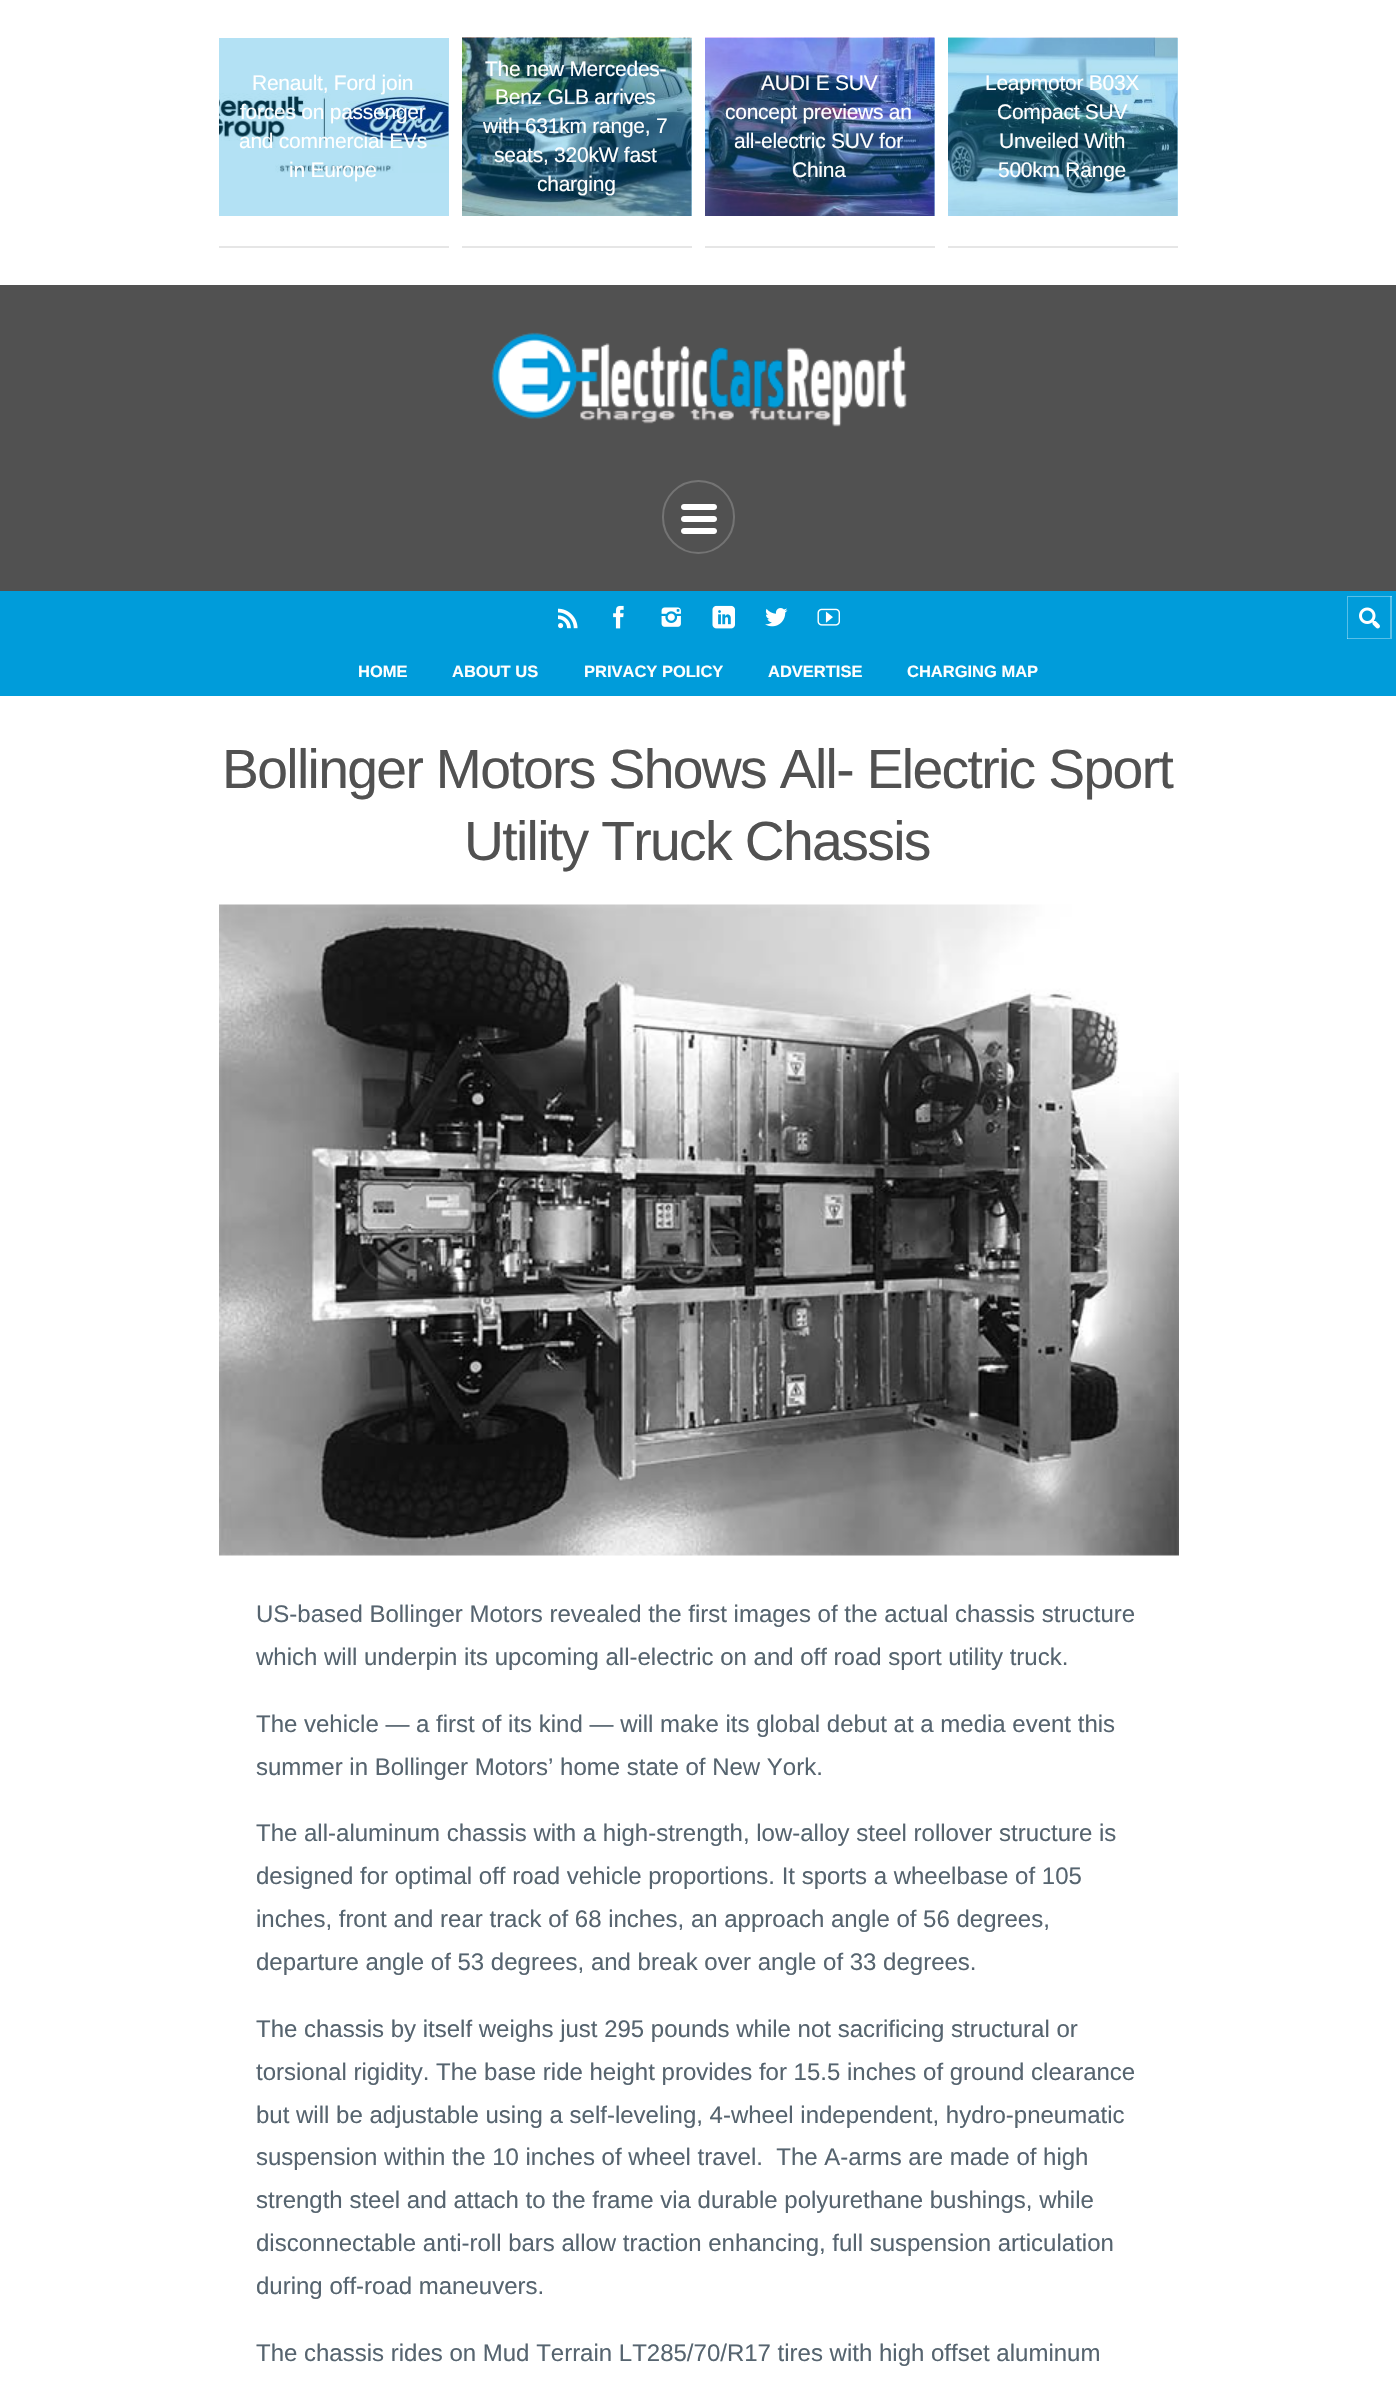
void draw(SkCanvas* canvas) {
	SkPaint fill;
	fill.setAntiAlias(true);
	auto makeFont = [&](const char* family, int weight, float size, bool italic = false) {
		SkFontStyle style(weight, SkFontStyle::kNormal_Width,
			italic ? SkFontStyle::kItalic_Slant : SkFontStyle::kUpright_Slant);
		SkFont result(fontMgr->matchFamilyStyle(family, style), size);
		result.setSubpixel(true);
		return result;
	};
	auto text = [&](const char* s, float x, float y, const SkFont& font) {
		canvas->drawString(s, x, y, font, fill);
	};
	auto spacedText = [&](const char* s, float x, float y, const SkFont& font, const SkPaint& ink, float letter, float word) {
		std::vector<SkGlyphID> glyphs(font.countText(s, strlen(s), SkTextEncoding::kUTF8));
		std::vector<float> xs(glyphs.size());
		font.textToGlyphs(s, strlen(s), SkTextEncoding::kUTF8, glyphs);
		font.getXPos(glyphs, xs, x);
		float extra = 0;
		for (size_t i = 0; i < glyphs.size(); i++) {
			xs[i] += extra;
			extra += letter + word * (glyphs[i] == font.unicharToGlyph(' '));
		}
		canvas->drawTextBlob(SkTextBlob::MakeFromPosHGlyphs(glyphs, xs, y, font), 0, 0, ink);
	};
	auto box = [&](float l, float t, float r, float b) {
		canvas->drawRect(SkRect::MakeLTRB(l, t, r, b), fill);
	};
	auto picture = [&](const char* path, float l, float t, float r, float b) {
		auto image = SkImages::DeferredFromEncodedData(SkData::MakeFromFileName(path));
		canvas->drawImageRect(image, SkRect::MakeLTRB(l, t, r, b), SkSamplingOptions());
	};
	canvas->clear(0xFFFFFFFF);
	fill.setColor(0xFFB3E1F4);
	box(1177, 38, 1178, 216);
	box(934, 38, 935, 216);
	box(691, 38, 692, 216);
	box(219, 38, 449, 216);
	fill.setColor(0xFFE6E6E6);
	box(219, 246, 449, 248);
	picture("image0.png", 219, 88, 449, 173);
	box(462, 246, 692, 248);
	picture("image1.png", 462, 37, 692, 216);
	box(705, 246, 935, 248);
	picture("image2.png", 705, 37, 935, 216);
	box(948, 246, 1178, 248);
	picture("image3.png", 948, 37, 1178, 216);
	fill.setColor(0xFF515151);
	box(0, 285, 1396, 591);
	picture("image4.png", 491, 332, 907, 427);
	fill.setStyle(SkPaint::kStroke_Style);
	fill.setStrokeWidth(2);
	fill.setColor(0xFF747474);
	canvas->drawRoundRect(SkRect::MakeLTRB(663, 481, 734, 553), 35.5f, 35.5f, fill);
	picture("image5.png", 681, 504, 717, 534);
	fill.setStyle(SkPaint::kFill_Style);
	fill.setColor(0xFF009CDA);
	box(0, 591, 1396, 696);
	picture("image6.png", 558, 608, 578, 629);
	picture("image7.png", 613, 605, 624, 629);
	picture("image8.png", 661, 607, 681, 627);
	picture("image9.png", 712, 605, 735, 629);
	picture("image10.png", 765, 608, 788, 627);
	picture("image11.png", 817, 608, 840, 626);
	canvas->save();
	canvas->clipRect(SkRect::MakeLTRB(1347, 596, 1392, 639));
	fill.setColor(0xFF59BFE7);
	canvas->drawPath(SkPathBuilder(SkPathFillType::kEvenOdd).moveTo(1198, 447).lineTo(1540, 447).lineTo(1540, 788).lineTo(1198, 788).close().moveTo(1346, 594).lineTo(1390, 594).lineTo(1390, 638).lineTo(1346, 638).close().detach(), fill);
	fill.setColor(0x59FFFFFF);
	canvas->drawPath(SkPathBuilder(SkPathFillType::kEvenOdd).moveTo(1198, 447).lineTo(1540, 447).lineTo(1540, 788).lineTo(1198, 788).close().moveTo(1348, 597).lineTo(1394, 597).lineTo(1394, 640).lineTo(1348, 640).close().detach(), fill);
	canvas->restore();
	picture("image12.png", 1359, 607, 1380, 629);
	picture("image13.png", 219, 904, 1179, 1556);
	auto font1 = makeFont("Liberation Sans", 400, 21);
	fill.setColor(0xFFFFFFFF);
	spacedText("Renault, Ford join", 252, 90, font1, fill, -0.25f, 0);
	spacedText("forces on passenger", 240, 119, font1, fill, -0.25f, 0);
	spacedText("and commercial EVs", 239, 148, font1, fill, -0.25f, 0);
	spacedText("in Europe", 289, 177, font1, fill, -0.25f, 0);
	spacedText("The new Mercedes-", 485, 76, font1, fill, -0.25f, 0);
	spacedText("Benz GLB arrives", 495, 104, font1, fill, -0.25f, 0);
	spacedText("with 631km range, 7", 483, 133, font1, fill, -0.25f, 0);
	spacedText("seats, 320kW fast", 494, 162, font1, fill, -0.25f, 0);
	spacedText("charging", 537, 191, font1, fill, -0.25f, 0);
	spacedText("AUDI E SUV", 761, 90, font1, fill, -0.25f, 0);
	spacedText("concept previews an", 725, 119, font1, fill, -0.25f, 0);
	spacedText("all-electric SUV for", 734, 148, font1, fill, -0.25f, 0);
	spacedText("China", 792, 177, font1, fill, -0.25f, 0);
	spacedText("Leapmotor B03X", 985, 90, font1, fill, -0.25f, 0);
	spacedText("Compact SUV", 997, 119, font1, fill, -0.25f, 0);
	spacedText("Unveiled With", 999, 148, font1, fill, -0.25f, 0);
	spacedText("500km Range", 998, 177, font1, fill, -0.25f, 0);
	auto font2 = makeFont("Liberation Sans", 700, 16.5f);
	text("HOME", 358, 677, font2);
	text("ABOUT US", 452, 677, font2);
	text("PRIVACY POLICY", 584, 677, font2);
	text("ADVERTISE", 768, 677, font2);
	text("CHARGING MAP", 907, 677, font2);
	auto font3 = makeFont("Liberation Sans", 400, 55.25f);
	fill.setColor(0xFF515151);
	spacedText("Bollinger Motors Shows All- Electric Sport", 222, 788, font3, fill, -1.65f, 0);
	spacedText("Utility Truck Chassis", 464, 860, font3, fill, -1.65f, 0);
	auto font4 = makeFont("Liberation Sans", 400, 24);
	fill.setColor(0xFF56646F);
	text("US-based Bollinger Motors revealed the first images of the actual chassis structure", 256, 1622, font4);
	text("which will underpin its upcoming all-electric on and off road sport utility truck.", 256, 1665, font4);
	text("The vehicle — a first of its kind — will make its global debut at a media event this", 256, 1732, font4);
	text("summer in Bollinger Motors’ home state of New York.", 256, 1775, font4);
	text("The all-aluminum chassis with a high-strength, low-alloy steel rollover structure is", 256, 1841, font4);
	text("designed for optimal off road vehicle proportions. It sports a wheelbase of 105", 256, 1884, font4);
	text("inches, front and rear track of 68 inches, an approach angle of 56 degrees,", 256, 1927, font4);
	text("departure angle of 53 degrees, and break over angle of 33 degrees.", 256, 1970, font4);
	text("The chassis by itself weighs just 295 pounds while not sacrificing structural or", 256, 2037, font4);
	text("torsional rigidity. The base ride height provides for 15.5 inches of ground clearance", 256, 2080, font4);
	text("but will be adjustable using a self-leveling, 4-wheel independent, hydro-pneumatic", 256, 2123, font4);
	text("suspension within the 10 inches of wheel travel.  The A-arms are made of high", 256, 2165, font4);
	text("strength steel and attach to the frame via durable polyurethane bushings, while", 256, 2208, font4);
	text("disconnectable anti-roll bars allow traction enhancing, full suspension articulation", 256, 2251, font4);
	text("during off-road maneuvers.", 256, 2294, font4);
	text("The chassis rides on Mud Terrain LT285/70/R17 tires with high offset aluminum", 256, 2361, font4);
}
